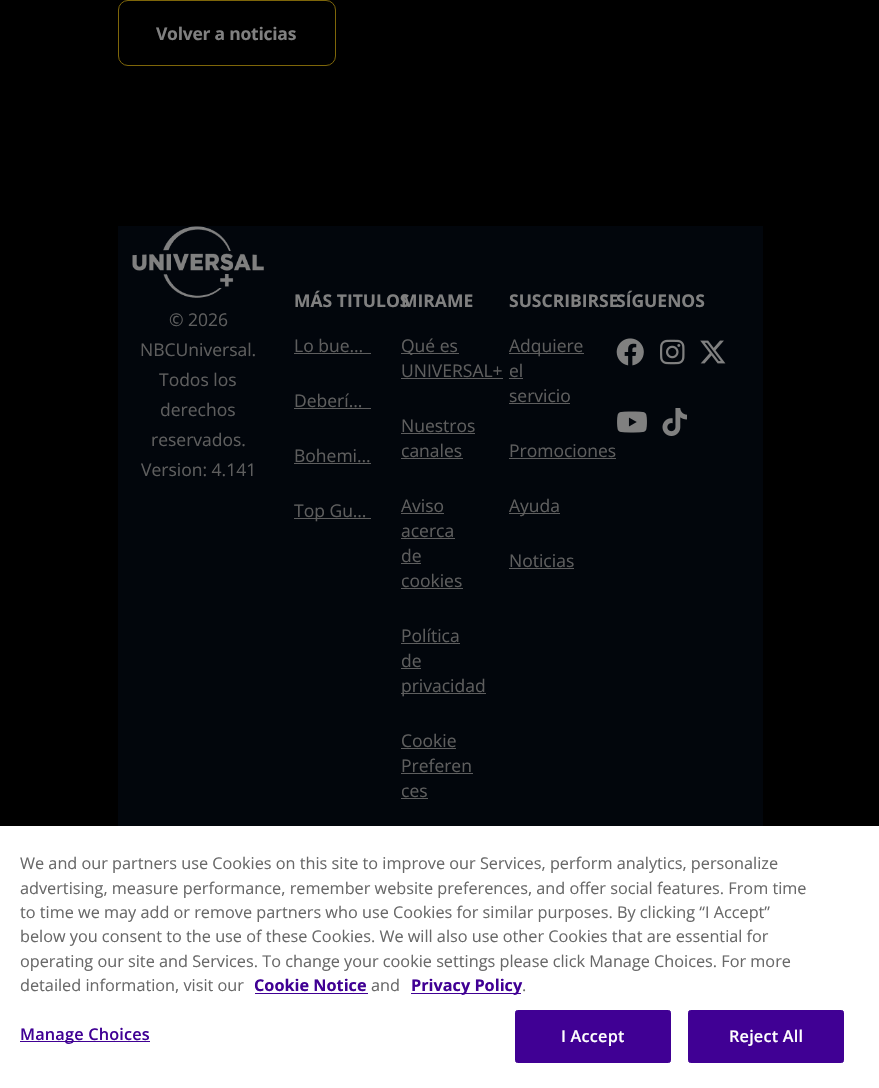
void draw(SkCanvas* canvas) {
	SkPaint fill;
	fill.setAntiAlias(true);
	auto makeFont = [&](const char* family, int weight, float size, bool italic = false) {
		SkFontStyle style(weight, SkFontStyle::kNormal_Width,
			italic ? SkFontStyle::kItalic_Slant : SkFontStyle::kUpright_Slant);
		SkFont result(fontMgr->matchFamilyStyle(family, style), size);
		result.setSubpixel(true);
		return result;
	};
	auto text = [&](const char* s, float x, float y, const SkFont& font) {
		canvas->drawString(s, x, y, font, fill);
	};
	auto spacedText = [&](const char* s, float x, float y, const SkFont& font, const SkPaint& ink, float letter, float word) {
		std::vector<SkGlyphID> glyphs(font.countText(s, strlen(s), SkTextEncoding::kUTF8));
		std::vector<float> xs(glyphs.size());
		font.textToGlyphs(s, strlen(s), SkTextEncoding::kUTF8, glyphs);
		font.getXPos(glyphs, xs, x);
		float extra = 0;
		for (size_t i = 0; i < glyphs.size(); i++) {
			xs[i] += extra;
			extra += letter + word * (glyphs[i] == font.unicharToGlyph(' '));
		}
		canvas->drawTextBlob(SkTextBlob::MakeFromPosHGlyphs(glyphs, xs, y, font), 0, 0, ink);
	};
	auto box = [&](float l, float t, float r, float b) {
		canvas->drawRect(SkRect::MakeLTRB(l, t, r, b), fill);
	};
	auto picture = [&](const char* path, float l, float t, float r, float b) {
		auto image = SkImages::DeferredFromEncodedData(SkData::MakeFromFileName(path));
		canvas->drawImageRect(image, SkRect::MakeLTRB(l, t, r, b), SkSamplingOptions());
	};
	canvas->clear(0xFF000000);
	fill.setStyle(SkPaint::kStroke_Style);
	fill.setStrokeWidth(1);
	fill.setColor(0xFF7E6609);
	canvas->drawRoundRect(SkRect::MakeLTRB(118.5f, 0.5f, 335.5f, 65.5f), 9.5f, 9.5f, fill);
	fill.setStyle(SkPaint::kFill_Style);
	fill.setColor(0xFF02060C);
	box(118, 226, 763, 826);
	picture("image0.png", 132, 226, 264, 298);
	fill.setColor(0xFF5E5E5E);
	box(294, 353, 371, 354);
	box(294, 408, 371, 409);
	box(294, 463, 371, 464);
	box(294, 518, 371, 519);
	box(401, 353, 459, 354);
	box(401, 378, 503, 379);
	box(401, 433, 475, 434);
	box(401, 458, 463, 459);
	box(401, 513, 444, 514);
	box(401, 538, 455, 539);
	box(401, 563, 421, 564);
	box(401, 588, 463, 589);
	box(401, 643, 460, 644);
	box(401, 668, 421, 669);
	box(401, 693, 486, 694);
	box(401, 748, 456, 749);
	box(401, 773, 473, 774);
	box(401, 798, 428, 799);
	box(509, 353, 584, 354);
	box(509, 378, 523, 379);
	box(509, 403, 570, 404);
	box(509, 458, 616, 459);
	box(509, 513, 560, 514);
	box(509, 568, 574, 569);
	picture("image1.png", 616, 338, 644, 366);
	picture("image2.png", 660, 339, 685, 365);
	picture("image3.png", 700, 340, 726, 364);
	picture("image4.png", 617, 411, 647, 433);
	picture("image5.png", 662, 408, 687, 436);
	fill.setColor(0xFFFFFFFF);
	box(0, 826, 879, 1088);
	fill.setColor(0xFF400094);
	box(255, 993, 368, 994);
	box(411, 993, 521, 994);
	box(20, 1041, 150, 1042);
	canvas->drawRoundRect(SkRect::MakeLTRB(515.5f, 1010.5f, 670.5f, 1062.5f), 2, 2, fill);
	fill.setStyle(SkPaint::kStroke_Style);
	canvas->drawRoundRect(SkRect::MakeLTRB(515.5f, 1010.5f, 670.5f, 1062.5f), 2, 2, fill);
	fill.setStyle(SkPaint::kFill_Style);
	canvas->drawRoundRect(SkRect::MakeLTRB(688.5f, 1010.5f, 843.5f, 1062.5f), 2, 2, fill);
	fill.setStyle(SkPaint::kStroke_Style);
	canvas->drawRoundRect(SkRect::MakeLTRB(688.5f, 1010.5f, 843.5f, 1062.5f), 2, 2, fill);
	auto font1 = makeFont("Open Sans", 700, 17.5f);
	fill.setStyle(SkPaint::kFill_Style);
	fill.setColor(0xFF808080);
	spacedText("Volver a noticias", 156, 40, font1, fill, -0.25f, 0);
	auto font2 = makeFont("Open Sans", 400, 17.5f);
	fill.setColor(0xFF5E5E5E);
	text("© 2026", 169, 326, font2);
	text("NBCUniversal.", 140, 356, font2);
	text("Todos los", 159, 386, font2);
	text("derechos", 160, 416, font2);
	text("reservados.", 151, 446, font2);
	text("Version: 4.141", 141, 476, font2);
	fill.setColor(0xFF808080);
	text("MÁS TITULOS", 294, 307, font1);
	fill.setColor(0xFF5E5E5E);
	text("Lo bue…", 294, 352, font2);
	text("Deberí…", 294, 407, font2);
	text("Bohemi…", 294, 462, font2);
	text("Top Gu…", 294, 517, font2);
	fill.setColor(0xFF808080);
	text("MIRAME", 401, 307, font1);
	fill.setColor(0xFF5E5E5E);
	text("Qué es", 401, 352, font2);
	text("UNIVERSAL+", 401, 377, font2);
	text("Nuestros", 401, 432, font2);
	text("canales", 401, 457, font2);
	text("Aviso", 401, 512, font2);
	text("acerca", 401, 537, font2);
	text("de", 401, 562, font2);
	text("cookies", 401, 587, font2);
	text("Política", 401, 642, font2);
	text("de", 401, 667, font2);
	text("privacidad", 401, 692, font2);
	text("Cookie", 401, 747, font2);
	text("Preferen", 401, 772, font2);
	text("ces", 401, 797, font2);
	fill.setColor(0xFF808080);
	text("SUSCRIBIRSE", 509, 307, font1);
	fill.setColor(0xFF5E5E5E);
	text("Adquiere", 509, 352, font2);
	text("el", 509, 377, font2);
	text("servicio", 509, 402, font2);
	text("Promociones", 509, 457, font2);
	text("Ayuda", 509, 512, font2);
	text("Noticias", 509, 567, font2);
	fill.setColor(0xFF808080);
	text("SÍGUENOS", 616, 307, font1);
	auto font3 = makeFont("Open Sans", 400, 16.25f);
	fill.setColor(0xFF696969);
	text("We and our partners use Cookies on this site to improve our Services, perform analytics, personalize", 20, 869, font3);
	text("advertising, measure performance, remember website preferences, and offer social features. From time", 20, 894, font3);
	text("to time we may add or remove partners who use Cookies for similar purposes. By clicking “I Accept”", 20, 918, font3);
	text("below you consent to the use of these Cookies. We will also use other Cookies that are essential for", 20, 942, font3);
	text("operating our site and Services. To change your cookie settings please click Manage Choices. For more", 20, 967, font3);
	text("detailed information, visit our", 20, 991, font3);
	auto font4 = makeFont("Open Sans", 700, 16.25f);
	fill.setColor(0xFF400094);
	text("Cookie Notice", 254, 991, font4);
	fill.setColor(0xFF696969);
	text("and", 371, 991, font3);
	fill.setColor(0xFF400094);
	text("Privacy Policy", 411, 991, font4);
	fill.setColor(0xFF696969);
	text(".", 522, 991, font3);
	auto font5 = makeFont("Open Sans", 600, 16.25f);
	fill.setColor(0xFF400094);
	spacedText("Manage Choices", 20, 1040, font5, fill, 0.2f, 0);
	fill.setColor(0xFFFFFFFF);
	spacedText("I Accept", 561, 1042, font5, fill, 0.2f, 0);
	spacedText("Reject All", 729, 1042, font5, fill, 0.2f, 0);
}
